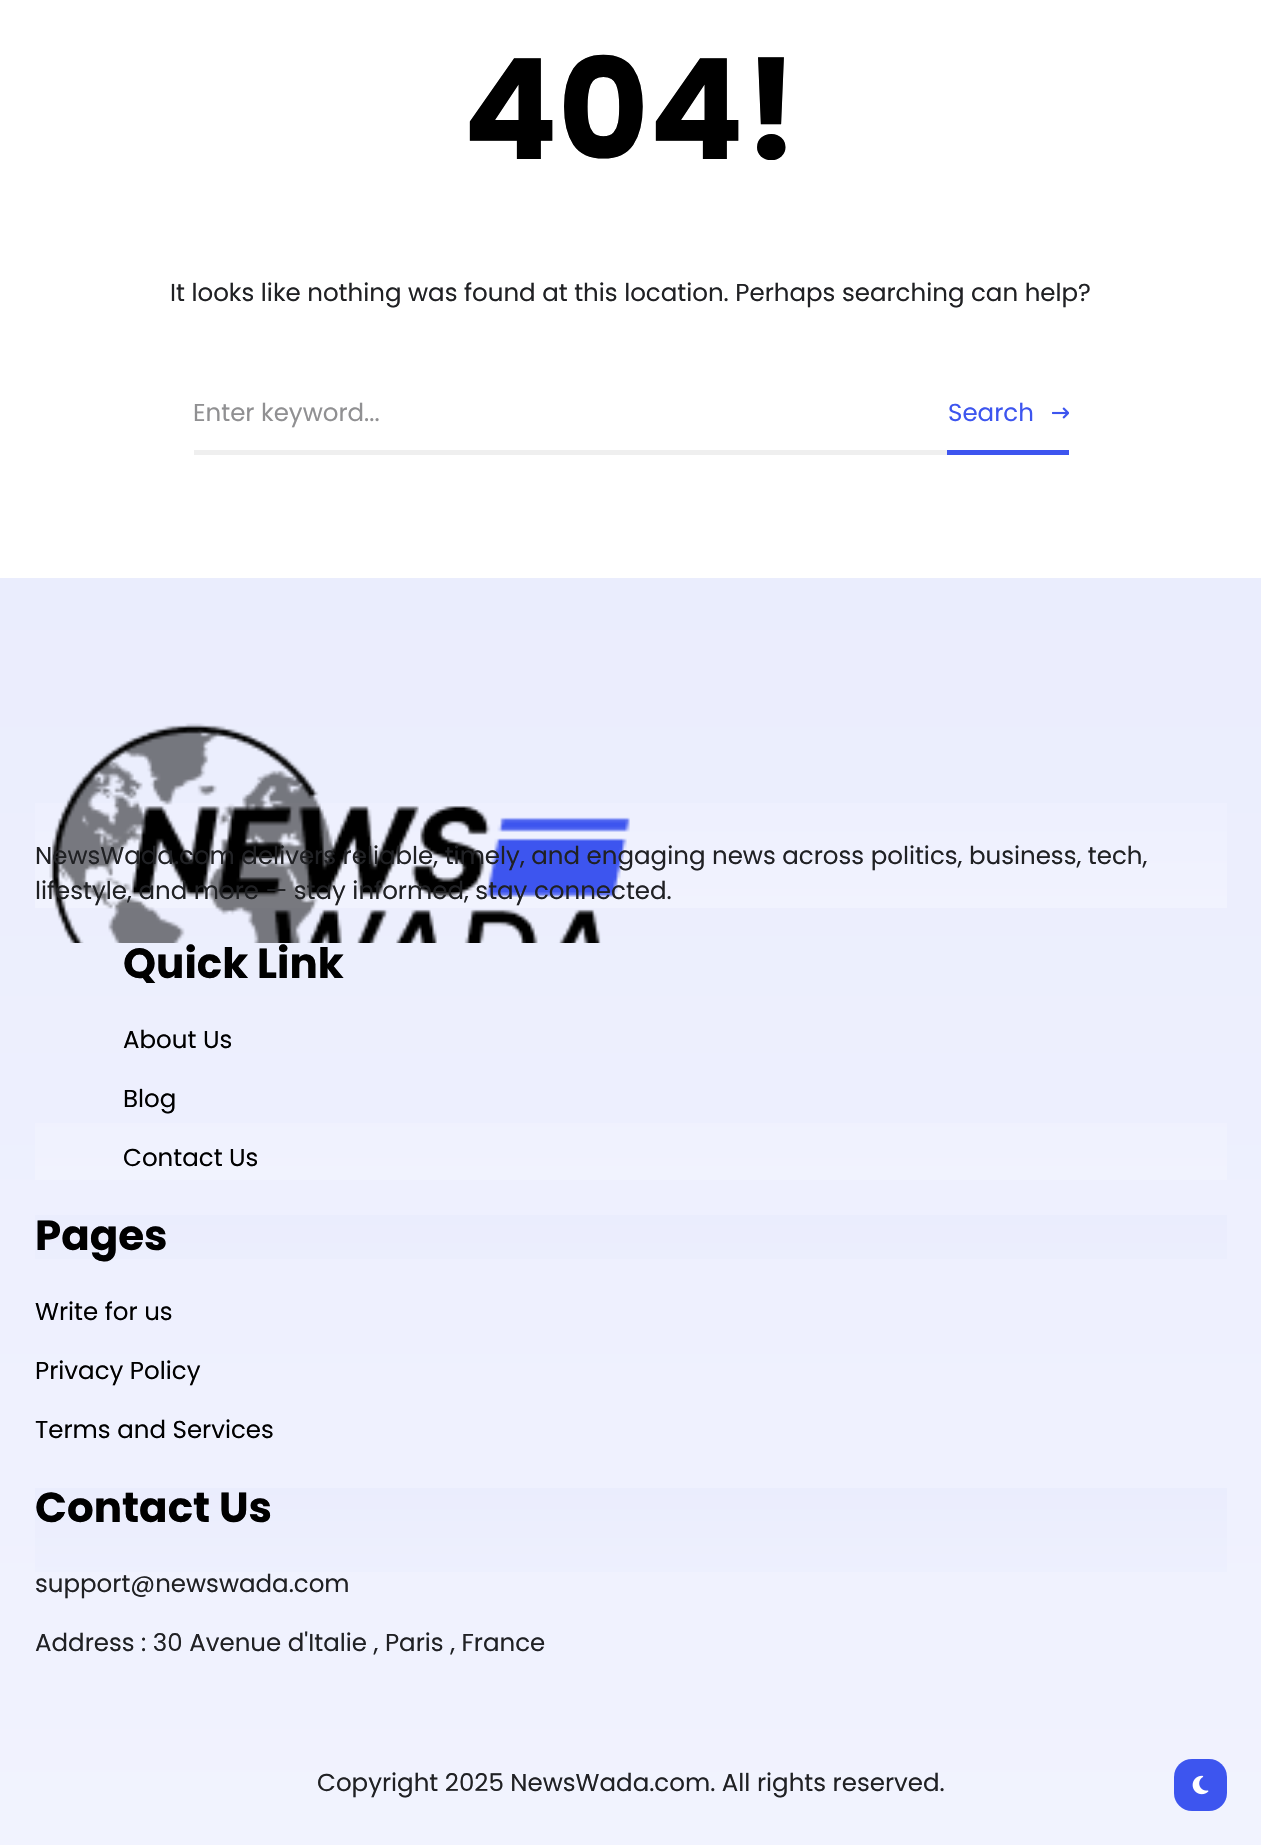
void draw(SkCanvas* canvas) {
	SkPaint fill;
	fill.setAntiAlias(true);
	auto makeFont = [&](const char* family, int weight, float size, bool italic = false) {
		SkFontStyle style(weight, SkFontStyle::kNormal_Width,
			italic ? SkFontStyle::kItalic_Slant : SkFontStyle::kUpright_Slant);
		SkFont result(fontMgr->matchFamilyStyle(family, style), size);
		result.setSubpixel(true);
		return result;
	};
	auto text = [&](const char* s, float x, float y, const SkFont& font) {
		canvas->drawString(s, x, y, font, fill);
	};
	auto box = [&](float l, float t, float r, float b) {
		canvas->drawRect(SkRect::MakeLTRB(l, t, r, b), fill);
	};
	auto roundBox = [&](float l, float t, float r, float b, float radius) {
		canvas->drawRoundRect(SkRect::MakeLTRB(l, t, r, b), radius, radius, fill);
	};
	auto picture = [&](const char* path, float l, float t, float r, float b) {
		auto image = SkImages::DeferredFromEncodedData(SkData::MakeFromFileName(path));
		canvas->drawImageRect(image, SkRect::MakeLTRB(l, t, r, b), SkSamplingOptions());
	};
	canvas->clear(0xFFFFFFFF);
	fill.setColor(0xFFEFEFEF);
	box(194, 450, 947, 455);
	fill.setColor(0xFF3D55EF);
	box(947, 450, 1069, 455);
	picture("image0.png", 1052, 407, 1069, 419);
	{
		const SkColor colors[] = {0xFF3D55EF, 0xFFFFFFFF};
		const float stops[] = {0, 1};
		const SkPoint ends[] = {{631, -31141}, {631, 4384}};
		fill.setShader(SkGradientShader::MakeLinear(ends, colors, stops, 2, SkTileMode::kClamp));
		fill.setAlpha(255);
	}
	box(0, 578, 1261, 1845);
	{
		const SkColor colors[] = {0xFF3D55EF, 0xFFFFFFFF};
		const float stops[] = {0, 1};
		const SkPoint ends[] = {{631, -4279}, {631, 1307}};
		fill.setShader(SkGradientShader::MakeLinear(ends, colors, stops, 2, SkTileMode::kClamp));
		fill.setAlpha(255);
	}
	box(35, 803, 1227, 908);
	picture("image1.png", 49, 723, 630, 943);
	{
		const SkColor colors[] = {0xFF3D55EF, 0xFFFFFFFF};
		const float stops[] = {0, 1};
		const SkPoint ends[] = {{631, -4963}, {631, 1652}};
		fill.setShader(SkGradientShader::MakeLinear(ends, colors, stops, 2, SkTileMode::kClamp));
		fill.setAlpha(255);
	}
	box(35, 1123, 1227, 1180);
	{
		const SkColor colors[] = {0xFF3D55EF, 0xFFFFFFFF};
		const float stops[] = {0, 1};
		const SkPoint ends[] = {{631, -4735}, {631, 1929}};
		fill.setShader(SkGradientShader::MakeLinear(ends, colors, stops, 2, SkTileMode::kClamp));
		fill.setAlpha(255);
	}
	box(35, 1215, 1227, 1259);
	{
		const SkColor colors[] = {0xFF3D55EF, 0xFFFFFFFF};
		const float stops[] = {0, 1};
		const SkPoint ends[] = {{631, -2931}, {631, 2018}};
		fill.setShader(SkGradientShader::MakeLinear(ends, colors, stops, 2, SkTileMode::kClamp));
		fill.setAlpha(255);
	}
	box(35, 1488, 1227, 1572);
	fill.setShader(nullptr);
	fill.setColor(0xFF3D55EF);
	roundBox(1174, 1759, 1227, 1811, 18);
	picture("image2.png", 1192, 1775, 1209, 1795);
	auto font1 = makeFont("Poppins", 700, 140);
	fill.setColor(0xFF000000);
	text("404!", 463, 159, font1);
	auto font2 = makeFont("Poppins", 400, 24.5f);
	fill.setColor(0xFF202124);
	text("It looks like nothing was found at this location. Perhaps searching can help?", 170, 301, font2);
	fill.setColor(0xFF909092);
	text("Enter keyword...", 193, 421, font2);
	fill.setColor(0xFF3D55EF);
	text("Search", 948, 421, font2);
	fill.setColor(0xFF202124);
	text("NewsWada.com delivers reliable, timely, and engaging news across politics, business, tech,", 35, 864, font2);
	text("lifestyle, and more — stay informed, stay connected.", 35, 899, font2);
	auto font3 = makeFont("Poppins", 700, 42);
	fill.setColor(0xFF000000);
	text("Quick Link", 123, 978, font3);
	text("About Us", 123, 1048, font2);
	text("Blog", 123, 1107, font2);
	text("Contact Us", 123, 1166, font2);
	text("Pages", 35, 1250, font3);
	text("Write for us", 35, 1320, font2);
	text("Privacy Policy", 35, 1379, font2);
	text("Terms and Services", 35, 1438, font2);
	text("Contact Us", 35, 1522, font3);
	fill.setColor(0xFF202124);
	text("support@newswada.com", 35, 1592, font2);
	text("Address : 30 Avenue d'Italie , Paris , France", 35, 1651, font2);
	text("Copyright 2025 NewsWada.com. All rights reserved.", 317, 1791, font2);
}
